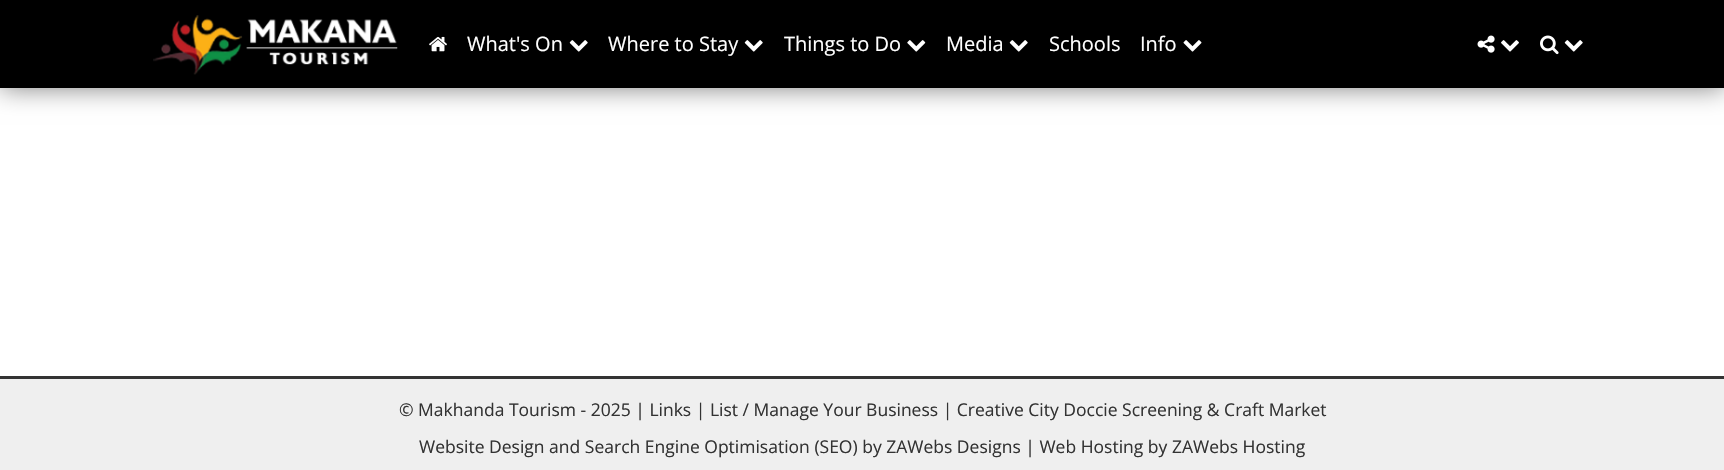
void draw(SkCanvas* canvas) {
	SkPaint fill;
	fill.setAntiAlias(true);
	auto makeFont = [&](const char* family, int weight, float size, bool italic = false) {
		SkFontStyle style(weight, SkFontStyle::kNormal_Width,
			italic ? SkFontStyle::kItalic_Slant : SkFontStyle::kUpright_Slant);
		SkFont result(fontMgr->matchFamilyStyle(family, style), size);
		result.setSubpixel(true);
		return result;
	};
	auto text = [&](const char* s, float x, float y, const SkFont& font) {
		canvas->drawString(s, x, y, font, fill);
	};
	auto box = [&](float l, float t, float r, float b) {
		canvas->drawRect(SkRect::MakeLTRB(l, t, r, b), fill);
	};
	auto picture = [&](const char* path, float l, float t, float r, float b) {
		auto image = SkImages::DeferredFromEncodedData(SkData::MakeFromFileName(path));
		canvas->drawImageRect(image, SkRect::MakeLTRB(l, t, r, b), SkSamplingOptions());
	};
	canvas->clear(0xFFFFFFFF);
	fill.setColor(0x80000000);
	fill.setMaskFilter(SkMaskFilter::MakeBlur(kNormal_SkBlurStyle, 12.5f));
	canvas->drawRect(SkRect::MakeLTRB(0, 0, 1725, 88), fill);
	fill.setMaskFilter(nullptr);
	fill.setColor(0xFF000000);
	box(0, 0, 1724, 88);
	picture("image0.png", 153, 15, 398, 75);
	picture("image1.png", 429, 36, 447, 52);
	picture("image2.png", 569, 40, 588, 52);
	picture("image2.png", 744, 40, 763, 52);
	picture("image3.png", 907, 40, 926, 52);
	picture("image2.png", 1009, 40, 1028, 52);
	picture("image4.png", 1183, 40, 1202, 52);
	picture("image5.png", 1477, 35, 1495, 53);
	picture("image6.png", 1501, 40, 1519, 52);
	picture("image7.png", 1540, 35, 1559, 55);
	picture("image2.png", 1564, 40, 1583, 52);
	fill.setColor(0xFFEFEFEF);
	box(0, 379, 1724, 470);
	fill.setColor(0xFF333333);
	box(0, 376, 1724, 379);
	auto font1 = makeFont("Open Sans", 400, 20);
	fill.setColor(0xFFFFFFFF);
	text("What's On", 467, 51, font1);
	text("Where to Stay", 608, 51, font1);
	text("Things to Do", 784, 51, font1);
	text("Media", 946, 51, font1);
	text("Schools", 1049, 51, font1);
	text("Info", 1140, 51, font1);
	auto font2 = makeFont("Open Sans", 400, 17.5f);
	fill.setColor(0xFF333333);
	text("© Makhanda Tourism - 2025 | Links | List / Manage Your Business | Creative City Doccie Screening & Craft Market", 399, 416, font2);
	text("Website Design and Search Engine Optimisation (SEO) by ZAWebs Designs | Web Hosting by ZAWebs Hosting", 419, 453, font2);
}
